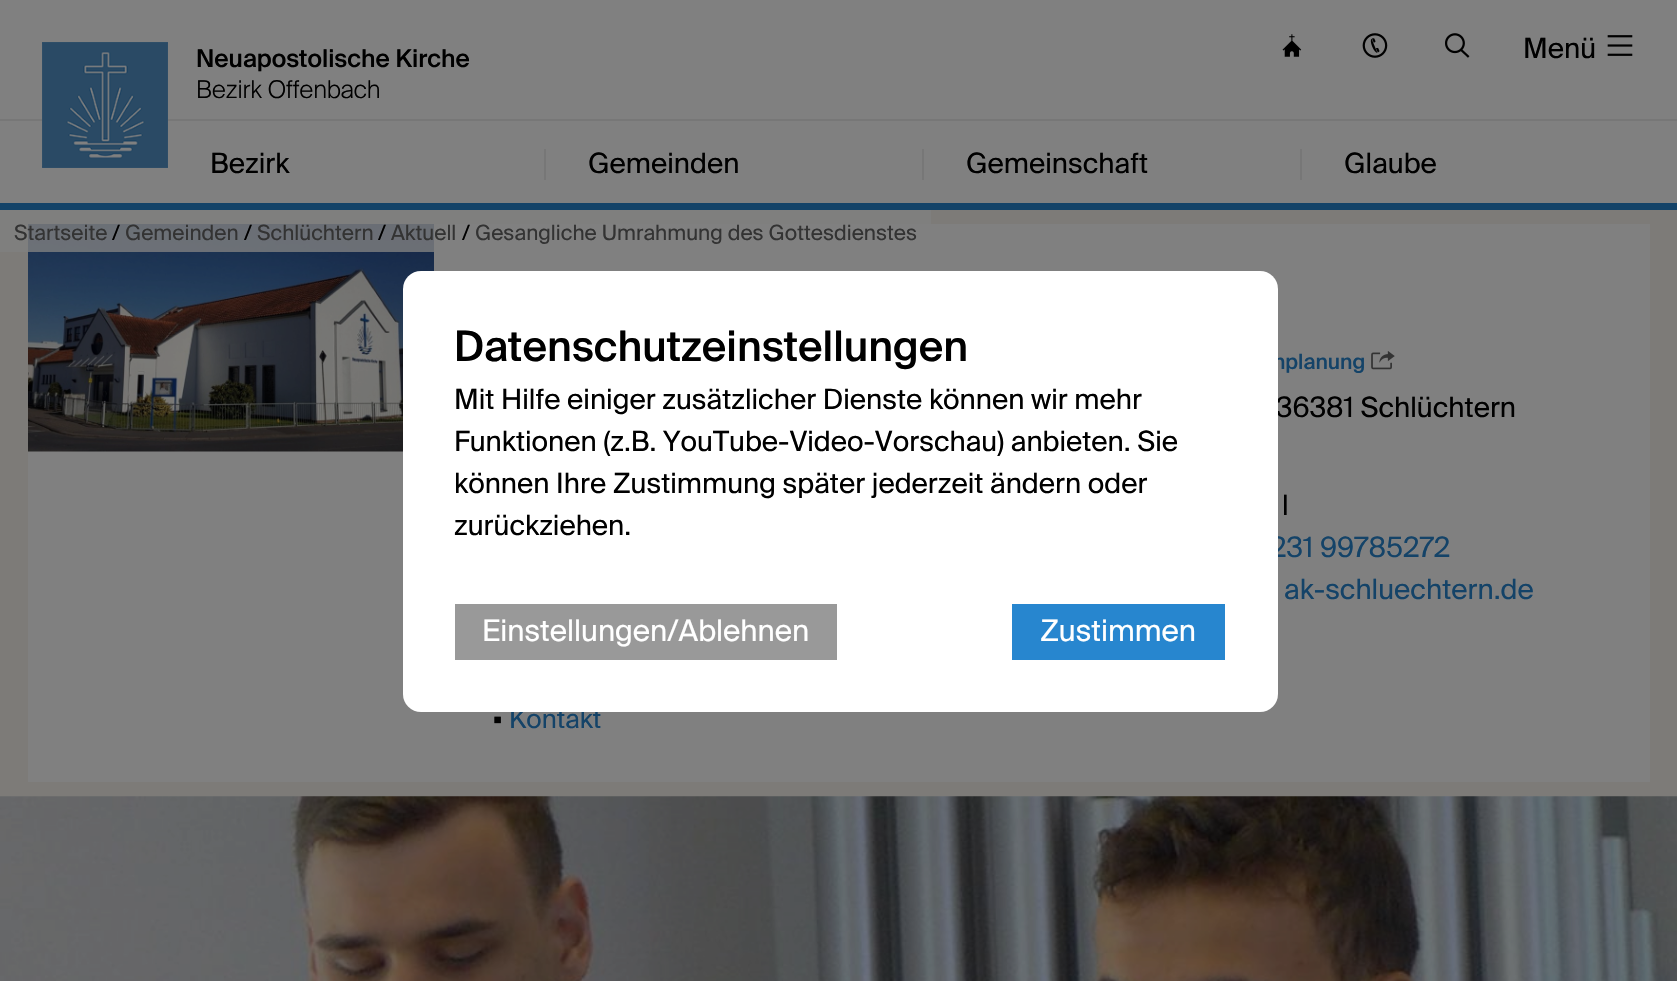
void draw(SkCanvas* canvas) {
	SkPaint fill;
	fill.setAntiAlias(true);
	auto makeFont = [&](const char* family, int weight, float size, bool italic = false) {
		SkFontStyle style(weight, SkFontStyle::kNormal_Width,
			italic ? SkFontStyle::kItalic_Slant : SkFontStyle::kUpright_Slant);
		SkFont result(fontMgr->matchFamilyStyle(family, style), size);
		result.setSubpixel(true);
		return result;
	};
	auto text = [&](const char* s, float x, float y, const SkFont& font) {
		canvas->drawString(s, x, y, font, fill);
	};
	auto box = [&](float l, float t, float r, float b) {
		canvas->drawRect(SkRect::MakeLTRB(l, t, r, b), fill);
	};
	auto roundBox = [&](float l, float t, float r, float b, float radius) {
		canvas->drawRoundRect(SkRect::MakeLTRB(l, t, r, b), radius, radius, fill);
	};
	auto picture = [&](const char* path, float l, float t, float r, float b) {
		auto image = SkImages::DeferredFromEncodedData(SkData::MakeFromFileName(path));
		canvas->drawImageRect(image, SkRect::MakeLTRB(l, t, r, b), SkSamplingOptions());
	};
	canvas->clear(0xFF7D7B78);
	fill.setColor(0xFF808080);
	box(0, 0, 1677, 203);
	fill.setColor(0xFF144368);
	box(0, 203, 1677, 210);
	fill.setColor(0xFF777777);
	box(0, 119, 1677, 121);
	picture("image0.png", 42, 42, 168, 168);
	picture("image1.png", 1282, 34, 1302, 57);
	picture("image2.png", 1362, 33, 1388, 58);
	picture("image3.png", 1445, 33, 1470, 58);
	picture("image4.png", 1607, 35, 1633, 56);
	box(544, 149, 546, 180);
	box(922, 149, 924, 180);
	box(1300, 149, 1302, 180);
	fill.setColor(0xFF808080);
	box(28, 224, 1650, 782);
	picture("image5.png", 28, 224, 434, 452);
	fill.setColor(0xCC808080);
	box(0, 210, 931, 252);
	picture("image6.png", 1371, 351, 1395, 370);
	picture("image7.png", 0, 796, 1677, 981);
	auto font1 = makeFont("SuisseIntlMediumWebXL", 500, 24.5f);
	fill.setColor(0xFF000000);
	text("Neuapostolische Kirche", 196, 67, font1);
	auto font2 = makeFont("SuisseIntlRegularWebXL", 400, 28);
	text("Menü", 1523, 58, font2);
	auto font3 = makeFont("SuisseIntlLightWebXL", 300, 24.5f);
	text("Bezirk Offenbach", 196, 98, font3);
	text("Bezirk", 210, 173, font2);
	text("Gemeinden", 588, 173, font2);
	text("Gemeinschaft", 966, 173, font2);
	text("Glaube", 1344, 173, font2);
	auto font4 = makeFont("SuisseIntlRegularWebXL", 400, 21);
	fill.setColor(0xFF333333);
	text("Startseite", 14, 240, font4);
	fill.setColor(0xFF000000);
	text("/", 112, 240, font4);
	fill.setColor(0xFF333333);
	text("Gemeinden", 125, 240, font4);
	fill.setColor(0xFF000000);
	text("/", 244, 240, font4);
	fill.setColor(0xFF333333);
	text("Schlüchtern", 257, 240, font4);
	fill.setColor(0xFF000000);
	text("/", 378, 240, font4);
	fill.setColor(0xFF333333);
	text("Aktuell", 391, 240, font4);
	fill.setColor(0xFF000000);
	text("/", 462, 240, font4);
	fill.setColor(0xFF333333);
	text("Gesangliche Umrahmung des Gottesdienstes", 475, 240, font4);
	auto font5 = makeFont("SuisseIntlMediumWebXL", 500, 21);
	fill.setColor(0xFF144368);
	text("nplanung", 1273, 369, font5);
	fill.setColor(0xFF000000);
	text("36381 Schlüchtern", 1276, 417, font2);
	text("l", 1282, 515, font2);
	fill.setColor(0xFF144368);
	text("231 99785272", 1270, 557, font2);
	text("ak-schluechtern.de", 1284, 599, font2);
	auto font6 = makeFont("Liberation Sans", 400, 26);
	fill.setColor(0xFF000000);
	text("▪", 493, 728, font6);
	auto font7 = makeFont("SuisseIntlRegularWebXL", 400, 26);
	fill.setColor(0xFF144368);
	text("Kontakt", 509, 728, font7);
	fill.setColor(0xFFFFFFFF);
	roundBox(403, 271, 1278, 712, 18);
	fill.setColor(0xFF2786CF);
	box(1012, 604, 1225, 660);
	auto font8 = makeFont("SuisseIntlRegularWebXL", 400, 29.75f);
	fill.setColor(0xFFFFFFFF);
	text("Zustimmen", 1040, 641, font8);
	fill.setColor(0xFF999999);
	box(455, 604, 837, 660);
	fill.setColor(0xFFFFFFFF);
	text("Einstellungen/Ablehnen", 482, 641, font8);
	fill.setColor(0xFF000000);
	text("zurückziehen.", 454, 535, font2);
	text("können Ihre Zustimmung später jederzeit ändern oder", 454, 493, font2);
	text("Funktionen (z.B. YouTube-Video-Vorschau) anbieten. Sie", 454, 451, font2);
	text("Mit Hilfe einiger zusätzlicher Dienste können wir mehr", 454, 409, font2);
	auto font9 = makeFont("SuisseIntlMediumWebXL", 500, 42);
	text("Datenschutzeinstellungen", 454, 361, font9);
}
